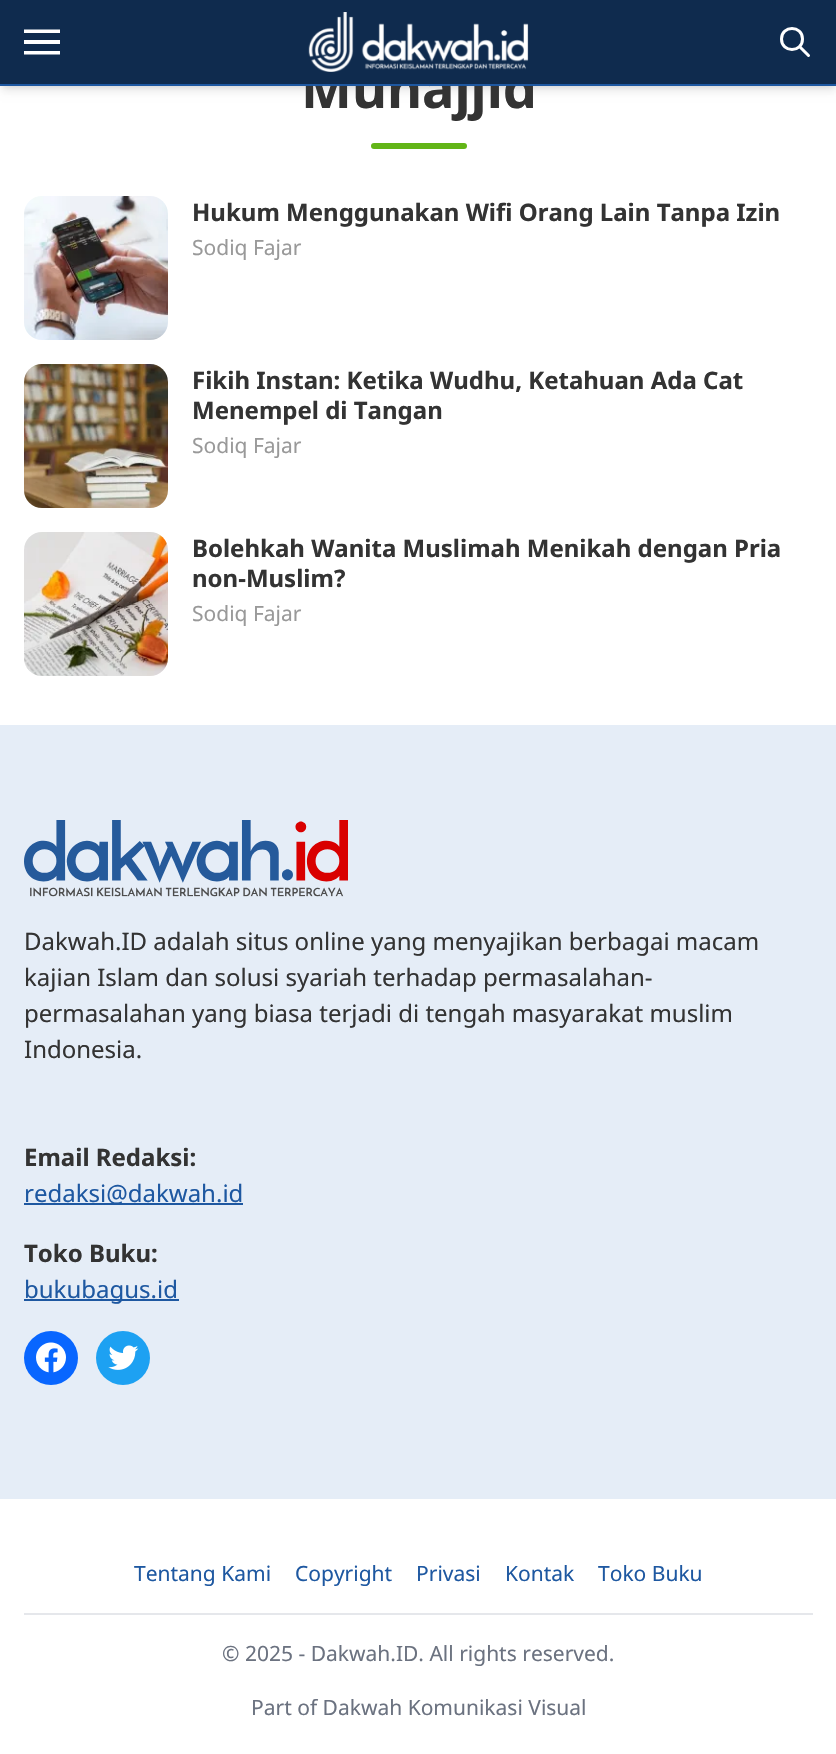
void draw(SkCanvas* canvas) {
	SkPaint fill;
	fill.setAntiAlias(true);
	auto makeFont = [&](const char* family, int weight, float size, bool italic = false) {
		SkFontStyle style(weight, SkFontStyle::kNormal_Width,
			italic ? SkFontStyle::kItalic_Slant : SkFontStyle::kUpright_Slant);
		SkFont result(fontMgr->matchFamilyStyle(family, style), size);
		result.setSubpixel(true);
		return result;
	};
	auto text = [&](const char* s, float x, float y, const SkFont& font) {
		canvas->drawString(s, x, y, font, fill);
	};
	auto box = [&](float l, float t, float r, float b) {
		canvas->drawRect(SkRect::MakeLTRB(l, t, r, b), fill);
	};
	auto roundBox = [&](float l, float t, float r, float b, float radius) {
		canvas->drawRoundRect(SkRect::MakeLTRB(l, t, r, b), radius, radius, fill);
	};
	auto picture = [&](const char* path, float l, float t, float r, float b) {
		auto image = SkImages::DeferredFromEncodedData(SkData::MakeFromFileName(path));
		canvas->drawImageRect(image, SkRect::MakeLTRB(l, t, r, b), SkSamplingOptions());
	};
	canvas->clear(0xFFFFFFFF);
	fill.setColor(0x1A000000);
	fill.setMaskFilter(SkMaskFilter::MakeBlur(kNormal_SkBlurStyle, 3));
	canvas->drawRect(SkRect::MakeLTRB(3, 6, 834, 86), fill);
	fill.setMaskFilter(nullptr);
	fill.setMaskFilter(SkMaskFilter::MakeBlur(kNormal_SkBlurStyle, 4.5f));
	canvas->drawRect(SkRect::MakeLTRB(2, 8, 836, 90), fill);
	fill.setMaskFilter(nullptr);
	fill.setColor(0xFF62B517);
	roundBox(371, 143, 467, 149, 3);
	picture("image1.png", 24, 196, 168, 340);
	picture("image2.png", 24, 364, 168, 508);
	picture("image3.png", 24, 532, 168, 676);
	fill.setColor(0xFFE5EDF7);
	box(0, 725, 836, 1499);
	picture("image4.png", 24, 820, 348, 897);
	fill.setColor(0xFF1E58A1);
	box(24, 1203, 243, 1205);
	box(24, 1299, 179, 1301);
	fill.setColor(0xFF0866FF);
	canvas->drawCircle(51, 1358, 27, fill);
	picture("image5.png", 36, 1342, 66, 1373);
	fill.setColor(0xFF1DA1F2);
	canvas->drawCircle(123, 1358, 27, fill);
	picture("image6.png", 108, 1345, 139, 1370);
	fill.setColor(0xFFE5E7EB);
	box(24, 1613, 813, 1615);
	auto font1 = makeFont("Noto Sans", 700, 54);
	fill.setColor(0xFF333333);
	text("Munajjid", 301, 108, font1);
	fill.setColor(0xFF0F2B4E);
	box(0, 0, 836, 84);
	fill.setStyle(SkPaint::kStroke_Style);
	fill.setStrokeWidth(3);
	fill.setStrokeCap(SkPaint::kRound_Cap);
	fill.setStrokeJoin(SkPaint::kRound_Join);
	fill.setColor(0xFFFFFFFF);
	canvas->drawPath(SkPathBuilder().moveTo(808.5f, 55.5f).lineTo(799.5f, 46.5f).moveTo(802.5f, 39).cubicTo(802.5f, 53, 781.5f, 53, 781.5f, 39).cubicTo(781.5f, 25, 802.5f, 25, 802.5f, 39).close().detach(), fill);
	fill.setStyle(SkPaint::kFill_Style);
	canvas->drawPath(SkPathBuilder(SkPathFillType::kEvenOdd).moveTo(24, 29.5f).lineTo(60, 29.5f).lineTo(60, 33).lineTo(24, 33).close().moveTo(24, 40).lineTo(60, 40).lineTo(60, 44).lineTo(24, 44).close().moveTo(24, 51).lineTo(60, 51).lineTo(60, 54.5f).lineTo(24, 54.5f).close().detach(), fill);
	picture("image0.png", 308, 12, 529, 72);
	fill.setColor(0xFF1E58A1);
	box(0, 84, 836, 86);
	auto font2 = makeFont("Noto Sans", 700, 24);
	fill.setColor(0xFF333333);
	text("Hukum Menggunakan Wifi Orang Lain Tanpa Izin", 192, 221, font2);
	auto font3 = makeFont("Noto Sans", 400, 21);
	fill.setColor(0xFF999999);
	text("Sodiq Fajar", 192, 255, font3);
	fill.setColor(0xFF333333);
	text("Fikih Instan: Ketika Wudhu, Ketahuan Ada Cat", 192, 389, font2);
	text("Menempel di Tangan", 192, 419, font2);
	fill.setColor(0xFF999999);
	text("Sodiq Fajar", 192, 453, font3);
	fill.setColor(0xFF333333);
	text("Bolehkah Wanita Muslimah Menikah dengan Pria", 192, 557, font2);
	text("non-Muslim?", 192, 587, font2);
	fill.setColor(0xFF999999);
	text("Sodiq Fajar", 192, 621, font3);
	auto font4 = makeFont("Noto Sans", 400, 24);
	fill.setColor(0xFF333333);
	text("Dakwah.ID adalah situs online yang menyajikan berbagai macam", 24, 950, font4);
	text("kajian Islam dan solusi syariah terhadap permasalahan-", 24, 986, font4);
	text("permasalahan yang biasa terjadi di tengah masyarakat muslim", 24, 1022, font4);
	text("Indonesia.", 24, 1058, font4);
	text("Email Redaksi:", 24, 1166, font2);
	fill.setColor(0xFF1E58A1);
	text("redaksi@dakwah.id", 24, 1202, font4);
	fill.setColor(0xFF333333);
	text("Toko Buku:", 24, 1262, font2);
	fill.setColor(0xFF1E58A1);
	text("bukubagus.id", 24, 1298, font4);
	text("Tentang Kami", 134, 1581, font3);
	text("Copyright", 295, 1581, font3);
	text("Privasi", 416, 1581, font3);
	text("Kontak", 505, 1581, font3);
	text("Toko Buku", 598, 1581, font3);
	fill.setColor(0xFF6B7280);
	text("© 2025 - Dakwah.ID. All rights reserved.", 222, 1661, font3);
	text("Part of Dakwah Komunikasi Visual", 251, 1715, font3);
}
